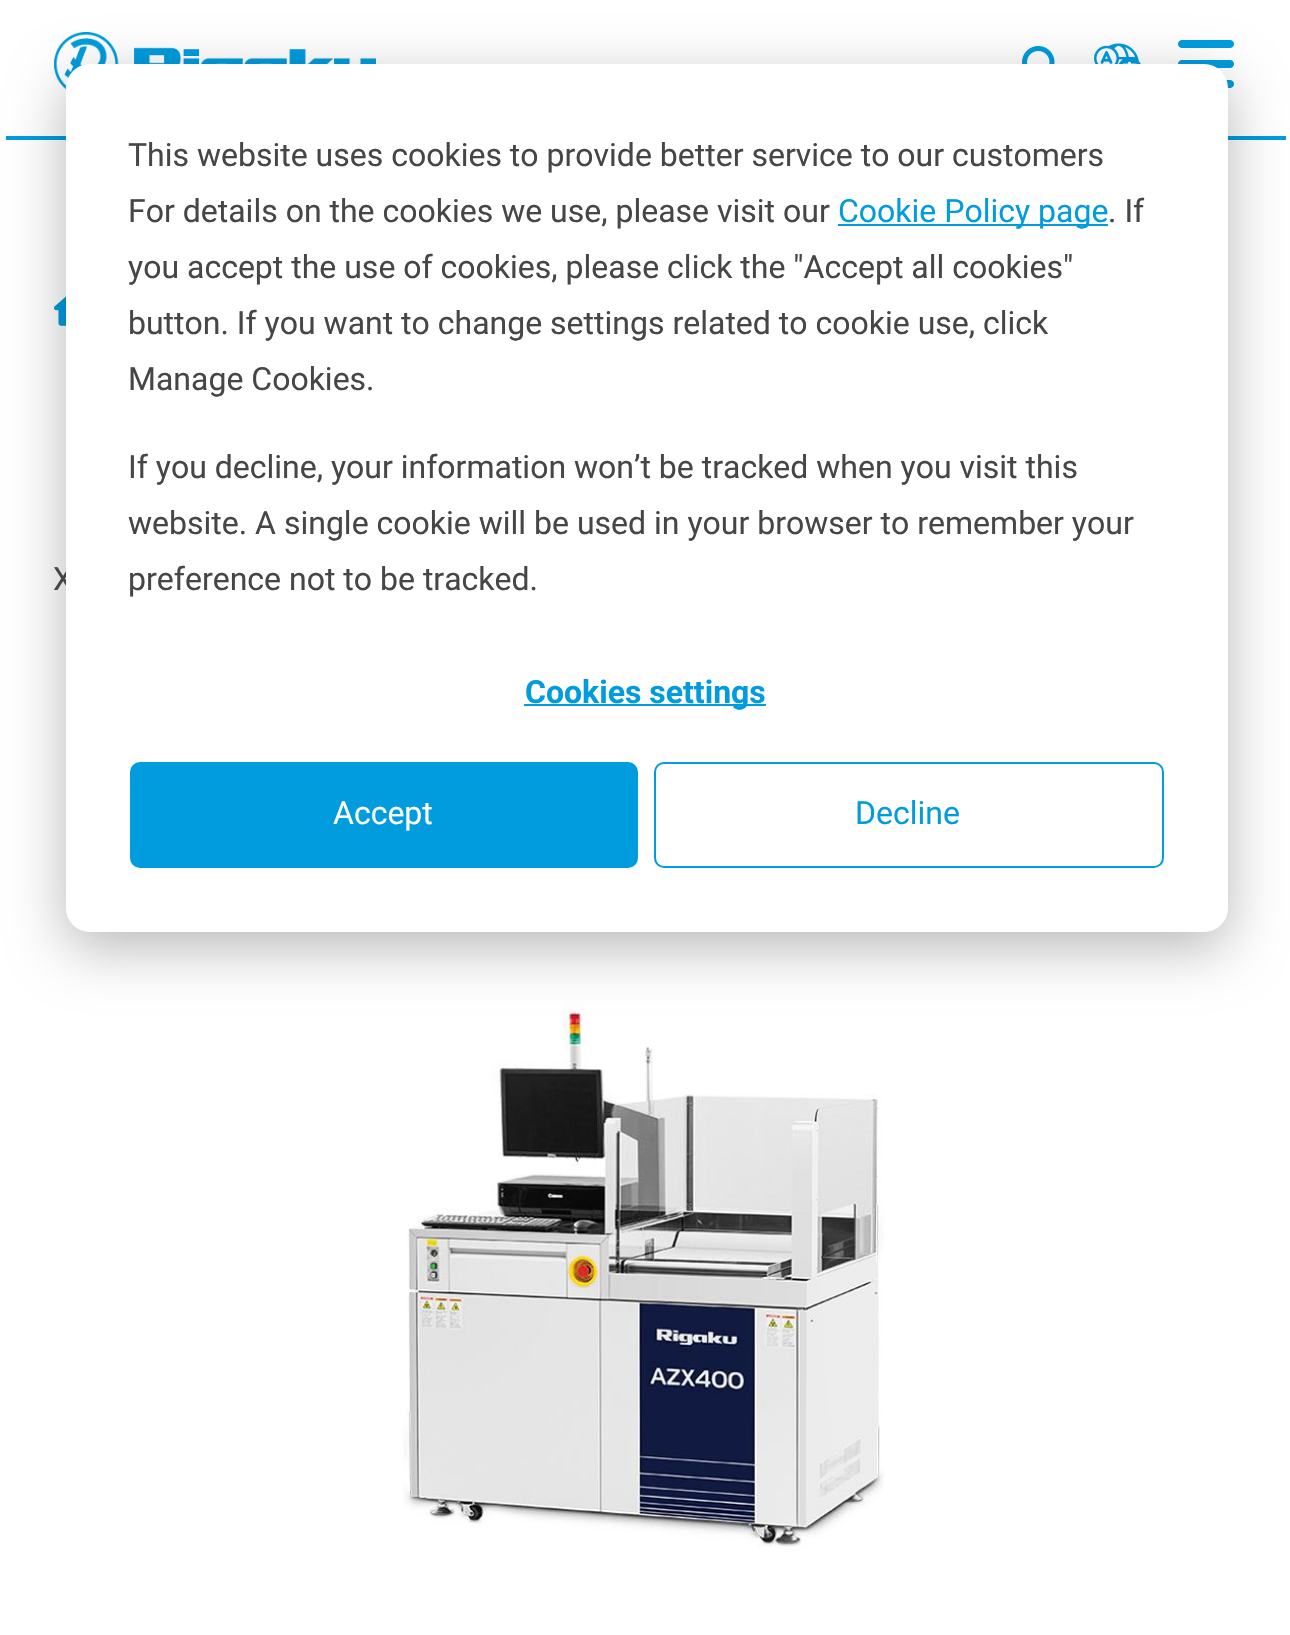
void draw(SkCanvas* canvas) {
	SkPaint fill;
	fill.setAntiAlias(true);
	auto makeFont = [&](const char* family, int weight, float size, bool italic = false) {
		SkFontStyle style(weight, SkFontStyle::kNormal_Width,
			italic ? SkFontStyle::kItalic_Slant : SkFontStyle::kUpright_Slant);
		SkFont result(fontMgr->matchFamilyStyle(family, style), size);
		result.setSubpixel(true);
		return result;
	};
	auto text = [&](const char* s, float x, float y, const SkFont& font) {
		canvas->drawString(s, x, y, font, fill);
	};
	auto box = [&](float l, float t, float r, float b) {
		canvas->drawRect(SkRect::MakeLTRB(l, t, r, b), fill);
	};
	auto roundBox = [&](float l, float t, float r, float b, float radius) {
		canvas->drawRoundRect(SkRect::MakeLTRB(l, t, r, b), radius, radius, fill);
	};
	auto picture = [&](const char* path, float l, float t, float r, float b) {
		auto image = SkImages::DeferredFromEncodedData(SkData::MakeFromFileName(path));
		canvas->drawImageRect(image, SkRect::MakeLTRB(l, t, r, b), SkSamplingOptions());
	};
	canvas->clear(0xFFFFFFFF);
	fill.setColor(0xFF009CDE);
	box(6, 136, 1286, 140);
	picture("image0.png", 54, 32, 376, 90);
	picture("image1.png", 1022, 46, 1055, 64);
	picture("image2.png", 1094, 43, 1141, 64);
	picture("image3.png", 1178, 40, 1234, 88);
	picture("image4.png", 54, 296, 66, 326);
	picture("image5.png", 403, 1005, 884, 1548);
	fill.setColor(0x47000000);
	fill.setMaskFilter(SkMaskFilter::MakeBlur(kNormal_SkBlurStyle, 28));
	canvas->drawRoundRect(SkRect::MakeLTRB(66, 80, 1228, 948), 24, 24, fill);
	fill.setMaskFilter(nullptr);
	auto font1 = makeFont("Roboto", 400, 32);
	fill.setColor(0xFF464646);
	text("X", 53, 590, font1);
	fill.setColor(0xFFFFFFFF);
	roundBox(66, 64, 1228, 932, 24);
	fill.setColor(0xFF464646);
	text("This website uses cookies to provide better service to our customers", 128, 166, font1);
	text("For details on the cookies we use, please visit our", 128, 222, font1);
	fill.setColor(0xFF009CDE);
	box(838, 224, 1108, 226);
	text("Cookie Policy page", 838, 222, font1);
	fill.setColor(0xFF464646);
	text(". If", 1108, 222, font1);
	text("you accept the use of cookies, please click the \"Accept all cookies\"", 128, 278, font1);
	text("button. If you want to change settings related to cookie use, click", 128, 334, font1);
	text("Manage Cookies.", 128, 390, font1);
	text("If you decline, your information won’t be tracked when you visit this", 128, 478, font1);
	text("website. A single cookie will be used in your browser to remember your", 128, 534, font1);
	text("preference not to be tracked.", 128, 590, font1);
	fill.setColor(0xFF009CDE);
	box(524, 704, 766, 706);
	auto font2 = makeFont("Roboto", 700, 32);
	text("Cookies settings", 525, 703, font2);
	canvas->drawRoundRect(SkRect::MakeLTRB(131, 763, 637, 867), 9, 9, fill);
	fill.setStyle(SkPaint::kStroke_Style);
	fill.setStrokeWidth(2);
	canvas->drawRoundRect(SkRect::MakeLTRB(131, 763, 637, 867), 9, 9, fill);
	fill.setStyle(SkPaint::kFill_Style);
	fill.setColor(0xFFFFFFFF);
	text("Accept", 333, 824, font1);
	fill.setStyle(SkPaint::kStroke_Style);
	fill.setColor(0xFF009CDE);
	canvas->drawRoundRect(SkRect::MakeLTRB(655, 763, 1163, 867), 9, 9, fill);
	fill.setStyle(SkPaint::kFill_Style);
	text("Decline", 855, 824, font1);
}
